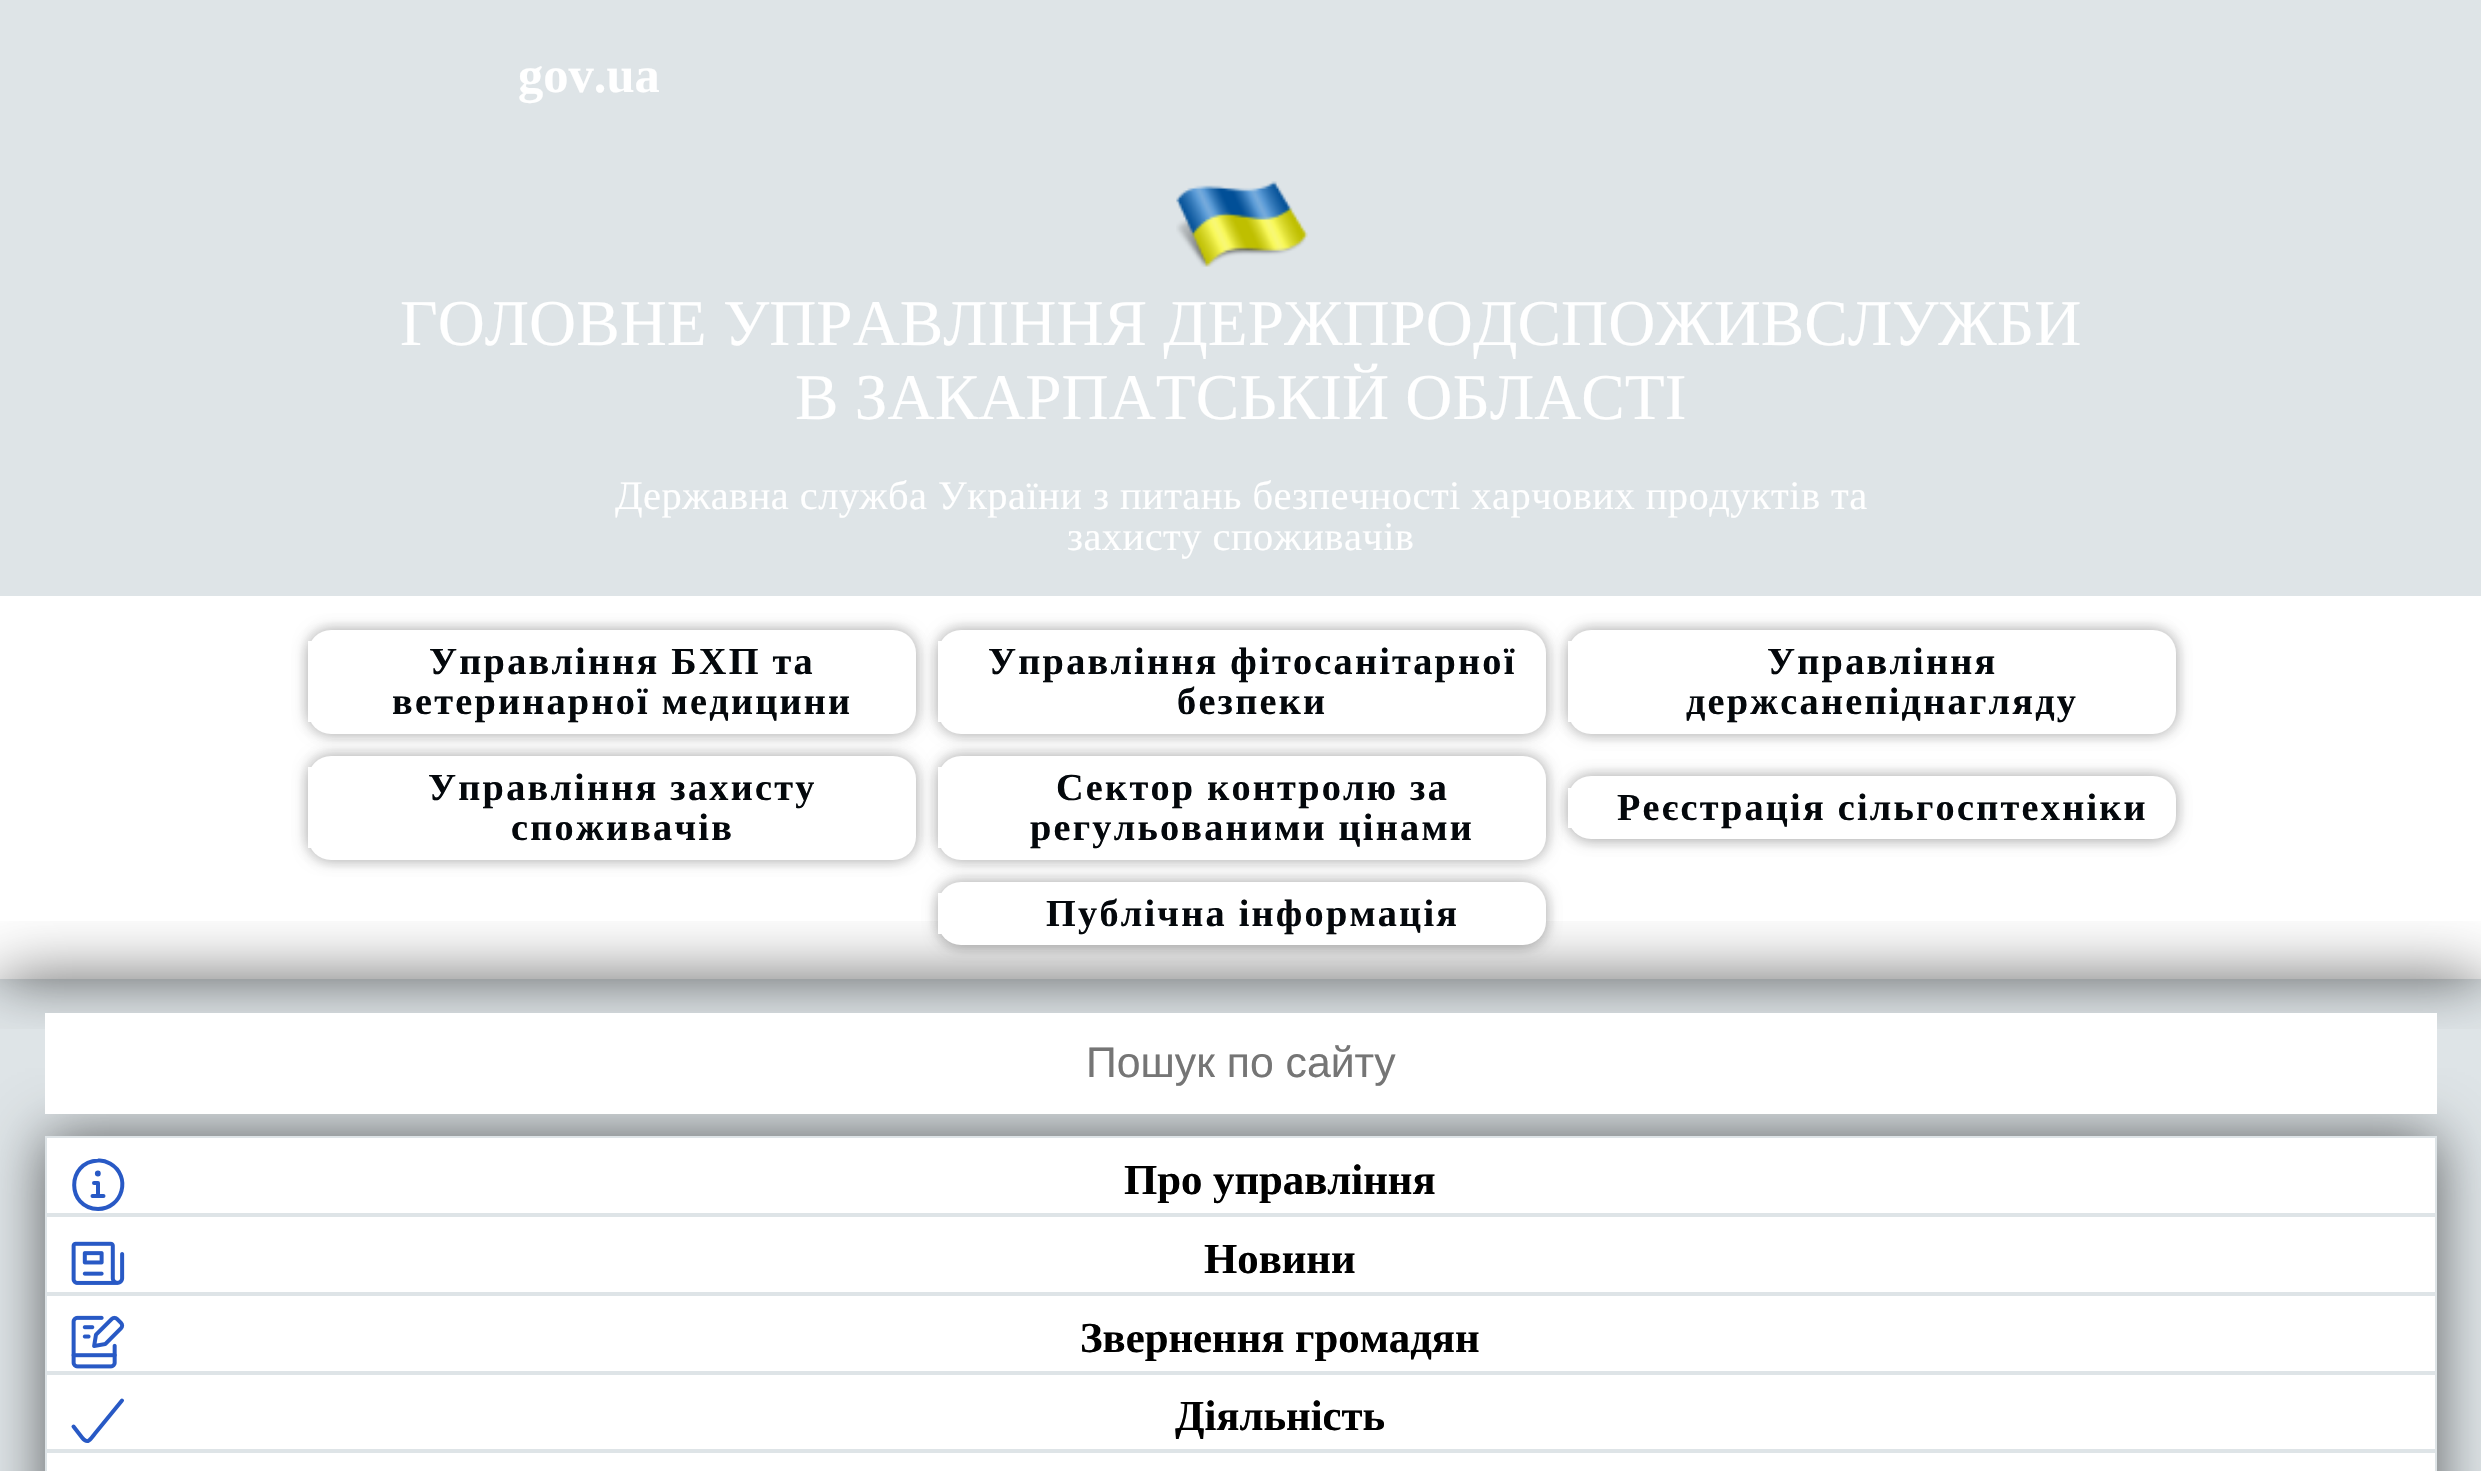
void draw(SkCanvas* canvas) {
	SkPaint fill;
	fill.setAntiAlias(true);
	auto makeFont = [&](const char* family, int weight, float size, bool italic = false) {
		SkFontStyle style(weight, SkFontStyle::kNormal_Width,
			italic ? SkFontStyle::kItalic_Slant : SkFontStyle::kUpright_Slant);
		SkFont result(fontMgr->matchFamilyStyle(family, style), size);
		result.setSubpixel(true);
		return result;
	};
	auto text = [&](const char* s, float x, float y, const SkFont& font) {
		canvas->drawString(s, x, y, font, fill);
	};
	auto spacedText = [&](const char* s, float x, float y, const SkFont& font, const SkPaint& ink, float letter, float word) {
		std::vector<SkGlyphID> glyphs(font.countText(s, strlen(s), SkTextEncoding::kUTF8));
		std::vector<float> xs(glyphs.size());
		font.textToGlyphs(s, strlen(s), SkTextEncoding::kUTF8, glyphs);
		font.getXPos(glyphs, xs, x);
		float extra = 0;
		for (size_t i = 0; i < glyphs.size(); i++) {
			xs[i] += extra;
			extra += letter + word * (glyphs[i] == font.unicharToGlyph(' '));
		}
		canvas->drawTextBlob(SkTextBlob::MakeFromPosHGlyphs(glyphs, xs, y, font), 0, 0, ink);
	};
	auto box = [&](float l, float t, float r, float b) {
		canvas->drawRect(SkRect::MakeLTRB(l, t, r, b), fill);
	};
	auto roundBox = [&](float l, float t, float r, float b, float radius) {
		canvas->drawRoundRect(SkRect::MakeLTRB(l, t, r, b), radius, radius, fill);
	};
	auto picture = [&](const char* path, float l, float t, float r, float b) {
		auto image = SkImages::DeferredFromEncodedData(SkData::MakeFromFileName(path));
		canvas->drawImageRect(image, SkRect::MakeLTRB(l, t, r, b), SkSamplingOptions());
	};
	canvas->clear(0xFFDEE4E7);
	canvas->save();
	canvas->clipRect(SkRect::MakeLTRB(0, 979, 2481, 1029));
	fill.setColor(0x96000000);
	fill.setMaskFilter(SkMaskFilter::MakeBlur(kNormal_SkBlurStyle, 28));
	canvas->drawRect(SkRect::MakeLTRB(0, 0, 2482, 979), fill);
	fill.setMaskFilter(nullptr);
	canvas->restore();
	picture("image0.png", 1176, 181, 1308, 267);
	fill.setColor(0xFFFFFFFF);
	box(0, 596, 2481, 979);
	fill.setColor(0x1A000000);
	fill.setMaskFilter(SkMaskFilter::MakeBlur(kNormal_SkBlurStyle, 5.5f));
	canvas->drawRoundRect(SkRect::MakeLTRB(304, 635, 911, 738), 23, 23, fill);
	fill.setMaskFilter(nullptr);
	fill.setMaskFilter(SkMaskFilter::MakeBlur(kNormal_SkBlurStyle, 5.5f));
	canvas->drawRoundRect(SkRect::MakeLTRB(313, 635, 920, 738), 23, 23, fill);
	fill.setMaskFilter(nullptr);
	fill.setMaskFilter(SkMaskFilter::MakeBlur(kNormal_SkBlurStyle, 5.5f));
	canvas->drawRoundRect(SkRect::MakeLTRB(304, 626, 911, 729), 23, 23, fill);
	fill.setMaskFilter(nullptr);
	fill.setMaskFilter(SkMaskFilter::MakeBlur(kNormal_SkBlurStyle, 5.5f));
	canvas->drawRoundRect(SkRect::MakeLTRB(313, 626, 920, 729), 23, 23, fill);
	fill.setMaskFilter(nullptr);
	fill.setColor(0xFFFFFFFF);
	roundBox(308, 630, 916, 734, 23);
	box(308, 641, 312, 722);
	fill.setColor(0x1A000000);
	fill.setMaskFilter(SkMaskFilter::MakeBlur(kNormal_SkBlurStyle, 5.5f));
	canvas->drawRoundRect(SkRect::MakeLTRB(934, 635, 1541, 738), 23, 23, fill);
	fill.setMaskFilter(nullptr);
	fill.setMaskFilter(SkMaskFilter::MakeBlur(kNormal_SkBlurStyle, 5.5f));
	canvas->drawRoundRect(SkRect::MakeLTRB(943, 635, 1550, 738), 23, 23, fill);
	fill.setMaskFilter(nullptr);
	fill.setMaskFilter(SkMaskFilter::MakeBlur(kNormal_SkBlurStyle, 5.5f));
	canvas->drawRoundRect(SkRect::MakeLTRB(934, 626, 1541, 729), 23, 23, fill);
	fill.setMaskFilter(nullptr);
	fill.setMaskFilter(SkMaskFilter::MakeBlur(kNormal_SkBlurStyle, 5.5f));
	canvas->drawRoundRect(SkRect::MakeLTRB(943, 626, 1550, 729), 23, 23, fill);
	fill.setMaskFilter(nullptr);
	fill.setColor(0xFFFFFFFF);
	roundBox(938, 630, 1546, 734, 23);
	box(938, 641, 942, 722);
	fill.setColor(0x1A000000);
	fill.setMaskFilter(SkMaskFilter::MakeBlur(kNormal_SkBlurStyle, 5.5f));
	canvas->drawRoundRect(SkRect::MakeLTRB(1564, 635, 2171, 738), 23, 23, fill);
	fill.setMaskFilter(nullptr);
	fill.setMaskFilter(SkMaskFilter::MakeBlur(kNormal_SkBlurStyle, 5.5f));
	canvas->drawRoundRect(SkRect::MakeLTRB(1573, 635, 2180, 738), 23, 23, fill);
	fill.setMaskFilter(nullptr);
	fill.setMaskFilter(SkMaskFilter::MakeBlur(kNormal_SkBlurStyle, 5.5f));
	canvas->drawRoundRect(SkRect::MakeLTRB(1564, 626, 2171, 729), 23, 23, fill);
	fill.setMaskFilter(nullptr);
	fill.setMaskFilter(SkMaskFilter::MakeBlur(kNormal_SkBlurStyle, 5.5f));
	canvas->drawRoundRect(SkRect::MakeLTRB(1573, 626, 2180, 729), 23, 23, fill);
	fill.setMaskFilter(nullptr);
	fill.setColor(0xFFFFFFFF);
	roundBox(1568, 630, 2176, 734, 23);
	box(1568, 641, 1572, 722);
	fill.setColor(0x1A000000);
	fill.setMaskFilter(SkMaskFilter::MakeBlur(kNormal_SkBlurStyle, 5.5f));
	canvas->drawRoundRect(SkRect::MakeLTRB(304, 761, 911, 864), 23, 23, fill);
	fill.setMaskFilter(nullptr);
	fill.setMaskFilter(SkMaskFilter::MakeBlur(kNormal_SkBlurStyle, 5.5f));
	canvas->drawRoundRect(SkRect::MakeLTRB(313, 761, 920, 864), 23, 23, fill);
	fill.setMaskFilter(nullptr);
	fill.setMaskFilter(SkMaskFilter::MakeBlur(kNormal_SkBlurStyle, 5.5f));
	canvas->drawRoundRect(SkRect::MakeLTRB(304, 752, 911, 855), 23, 23, fill);
	fill.setMaskFilter(nullptr);
	fill.setMaskFilter(SkMaskFilter::MakeBlur(kNormal_SkBlurStyle, 5.5f));
	canvas->drawRoundRect(SkRect::MakeLTRB(313, 752, 920, 855), 23, 23, fill);
	fill.setMaskFilter(nullptr);
	fill.setColor(0xFFFFFFFF);
	roundBox(308, 756, 916, 860, 23);
	box(308, 767, 312, 848);
	fill.setColor(0x1A000000);
	fill.setMaskFilter(SkMaskFilter::MakeBlur(kNormal_SkBlurStyle, 5.5f));
	canvas->drawRoundRect(SkRect::MakeLTRB(934, 761, 1541, 864), 23, 23, fill);
	fill.setMaskFilter(nullptr);
	fill.setMaskFilter(SkMaskFilter::MakeBlur(kNormal_SkBlurStyle, 5.5f));
	canvas->drawRoundRect(SkRect::MakeLTRB(943, 761, 1550, 864), 23, 23, fill);
	fill.setMaskFilter(nullptr);
	fill.setMaskFilter(SkMaskFilter::MakeBlur(kNormal_SkBlurStyle, 5.5f));
	canvas->drawRoundRect(SkRect::MakeLTRB(934, 752, 1541, 855), 23, 23, fill);
	fill.setMaskFilter(nullptr);
	fill.setMaskFilter(SkMaskFilter::MakeBlur(kNormal_SkBlurStyle, 5.5f));
	canvas->drawRoundRect(SkRect::MakeLTRB(943, 752, 1550, 855), 23, 23, fill);
	fill.setMaskFilter(nullptr);
	fill.setColor(0xFFFFFFFF);
	roundBox(938, 756, 1546, 860, 23);
	box(938, 767, 942, 848);
	fill.setColor(0x1A000000);
	fill.setMaskFilter(SkMaskFilter::MakeBlur(kNormal_SkBlurStyle, 5.5f));
	canvas->drawRoundRect(SkRect::MakeLTRB(1564, 781, 2171, 844), 23, 23, fill);
	fill.setMaskFilter(nullptr);
	fill.setMaskFilter(SkMaskFilter::MakeBlur(kNormal_SkBlurStyle, 5.5f));
	canvas->drawRoundRect(SkRect::MakeLTRB(1573, 781, 2180, 844), 23, 23, fill);
	fill.setMaskFilter(nullptr);
	fill.setMaskFilter(SkMaskFilter::MakeBlur(kNormal_SkBlurStyle, 5.5f));
	canvas->drawRoundRect(SkRect::MakeLTRB(1564, 772, 2171, 835), 23, 23, fill);
	fill.setMaskFilter(nullptr);
	fill.setMaskFilter(SkMaskFilter::MakeBlur(kNormal_SkBlurStyle, 5.5f));
	canvas->drawRoundRect(SkRect::MakeLTRB(1573, 772, 2180, 835), 23, 23, fill);
	fill.setMaskFilter(nullptr);
	fill.setColor(0xFFFFFFFF);
	roundBox(1568, 776, 2176, 839, 23);
	box(1568, 788, 1572, 828);
	fill.setColor(0x1A000000);
	fill.setMaskFilter(SkMaskFilter::MakeBlur(kNormal_SkBlurStyle, 5.5f));
	canvas->drawRoundRect(SkRect::MakeLTRB(934, 887, 1541, 950), 23, 23, fill);
	fill.setMaskFilter(nullptr);
	fill.setMaskFilter(SkMaskFilter::MakeBlur(kNormal_SkBlurStyle, 5.5f));
	canvas->drawRoundRect(SkRect::MakeLTRB(943, 887, 1550, 950), 23, 23, fill);
	fill.setMaskFilter(nullptr);
	fill.setMaskFilter(SkMaskFilter::MakeBlur(kNormal_SkBlurStyle, 5.5f));
	canvas->drawRoundRect(SkRect::MakeLTRB(934, 878, 1541, 941), 23, 23, fill);
	fill.setMaskFilter(nullptr);
	fill.setMaskFilter(SkMaskFilter::MakeBlur(kNormal_SkBlurStyle, 5.5f));
	canvas->drawRoundRect(SkRect::MakeLTRB(943, 878, 1550, 941), 23, 23, fill);
	fill.setMaskFilter(nullptr);
	canvas->save();
	canvas->clipRect(SkRect::MakeLTRB(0, 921, 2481, 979));
	fill.setColor(0x96000000);
	fill.setMaskFilter(SkMaskFilter::MakeBlur(kNormal_SkBlurStyle, 31.5f));
	canvas->drawRect(SkRect::MakeLTRB(0, 979, 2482, 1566), fill);
	fill.setMaskFilter(nullptr);
	canvas->restore();
	fill.setColor(0xFFFFFFFF);
	roundBox(938, 882, 1546, 945, 23);
	box(938, 893, 942, 934);
	fill.setColor(0x96000000);
	fill.setMaskFilter(SkMaskFilter::MakeBlur(kNormal_SkBlurStyle, 28));
	canvas->drawRect(SkRect::MakeLTRB(45, 1136, 2437, 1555), fill);
	fill.setMaskFilter(nullptr);
	fill.setColor(0xFFFFFFFF);
	box(45, 1013, 2437, 1114);
	box(47, 1138, 2435, 1471);
	fill.setStyle(SkPaint::kStroke_Style);
	fill.setStrokeWidth(2);
	fill.setColor(0xFFDEE4E7);
	canvas->drawRect(SkRect::MakeLTRB(46, 1137, 2436, 1214), fill);
	fill.setStrokeWidth(4);
	fill.setStrokeCap(SkPaint::kRound_Cap);
	fill.setStrokeJoin(SkPaint::kRound_Join);
	fill.setColor(0xFF2859C5);
	canvas->drawPath(SkPathBuilder().moveTo(98, 1209).cubicTo(122.5f, 1209, 132, 1176, 110, 1163.5f).cubicTo(106.5f, 1161.5f, 102, 1160, 98, 1160.5f).cubicTo(66, 1162, 66.5f, 1208.5f, 98, 1209).close().moveTo(92.5f, 1196).lineTo(103.5f, 1196).moveTo(98, 1196).lineTo(98, 1183).lineTo(94, 1183).moveTo(98, 1174.5f).cubicTo(96.5f, 1174.5f, 96.5f, 1172.5f, 98, 1172.5f).moveTo(98, 1174.5f).cubicTo(99, 1174.5f, 99, 1172.5f, 98, 1172.5f).detach(), fill);
	fill.setStrokeWidth(2);
	fill.setStrokeCap(SkPaint::kButt_Cap);
	fill.setStrokeJoin(SkPaint::kMiter_Join);
	fill.setColor(0xFFDEE4E7);
	canvas->drawRect(SkRect::MakeLTRB(46, 1216, 2436, 1293), fill);
	picture("image1.png", 71, 1241, 125, 1285);
	canvas->drawRect(SkRect::MakeLTRB(46, 1295, 2436, 1372), fill);
	picture("image2.png", 71, 1315, 125, 1369);
	canvas->drawRect(SkRect::MakeLTRB(46, 1374, 2436, 1450), fill);
	fill.setStrokeWidth(4);
	fill.setStrokeCap(SkPaint::kRound_Cap);
	fill.setStrokeJoin(SkPaint::kRound_Join);
	fill.setColor(0xFF2859C5);
	canvas->drawPath(SkPathBuilder().moveTo(73.5f, 1426.5f).lineTo(82, 1437.5f).cubicTo(88, 1445, 90, 1439.5f, 95, 1433.5f).lineTo(122, 1400.5f).detach(), fill);
	fill.setStrokeWidth(2);
	fill.setStrokeCap(SkPaint::kButt_Cap);
	fill.setStrokeJoin(SkPaint::kMiter_Join);
	fill.setColor(0xFFDEE4E7);
	canvas->drawRect(SkRect::MakeLTRB(46, 1452, 2436, 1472), fill);
	auto font1 = makeFont("Liberation Serif", 700, 50.5f);
	fill.setStyle(SkPaint::kFill_Style);
	fill.setColor(0xFFFFFFFF);
	text("gov.ua", 518, 92, font1);
	auto font2 = makeFont("Liberation Serif", 400, 65.25f);
	text("ГОЛОВНЕ УПРАВЛІННЯ ДЕРЖПРОДСПОЖИВСЛУЖБИ", 400, 345, font2);
	text("В ЗАКАРПАТСЬКІЙ ОБЛАСТІ", 795, 419, font2);
	auto font3 = makeFont("Liberation Serif", 400, 40.5f);
	spacedText("Державна служба України з питань безпечності харчових продуктів та", 615, 509, font3, fill, 0.45f, 0);
	spacedText("захисту споживачів", 1067, 550, font3, fill, 0.45f, 0);
	auto font4 = makeFont("Liberation Serif", 700, 38.25f);
	fill.setColor(0xFF04080C);
	spacedText("Управління БХП та", 429, 674, font4, fill, 2.25f, 0);
	spacedText("ветеринарної медицини", 392, 714, font4, fill, 2.25f, 0);
	spacedText("Управління фітосанітарної", 988, 674, font4, fill, 2.25f, 0);
	spacedText("безпеки", 1177, 714, font4, fill, 2.25f, 0);
	spacedText("Управління", 1767, 674, font4, fill, 2.25f, 0);
	spacedText("держсанепіднагляду", 1686, 714, font4, fill, 2.25f, 0);
	spacedText("Управління захисту", 428, 800, font4, fill, 2.25f, 0);
	spacedText("споживачів", 511, 840, font4, fill, 2.25f, 0);
	spacedText("Сектор контролю за", 1056, 800, font4, fill, 2.25f, 0);
	spacedText("регульованими цінами", 1030, 840, font4, fill, 2.25f, 0);
	spacedText("Реєстрація сільгосптехніки", 1617, 820, font4, fill, 2.25f, 0);
	spacedText("Публічна інформація", 1046, 926, font4, fill, 2.25f, 0);
	auto font5 = makeFont("Liberation Sans", 400, 42.75f);
	fill.setColor(0xFF757575);
	text("Пошук по сайту", 1086, 1077, font5);
	auto font6 = makeFont("Liberation Serif", 700, 42.75f);
	fill.setColor(0xFF000000);
	text("Про управління", 1124, 1194, font6);
	text("Новини", 1204, 1273, font6);
	text("Звернення громадян", 1080, 1352, font6);
	text("Діяльність", 1175, 1430, font6);
}
